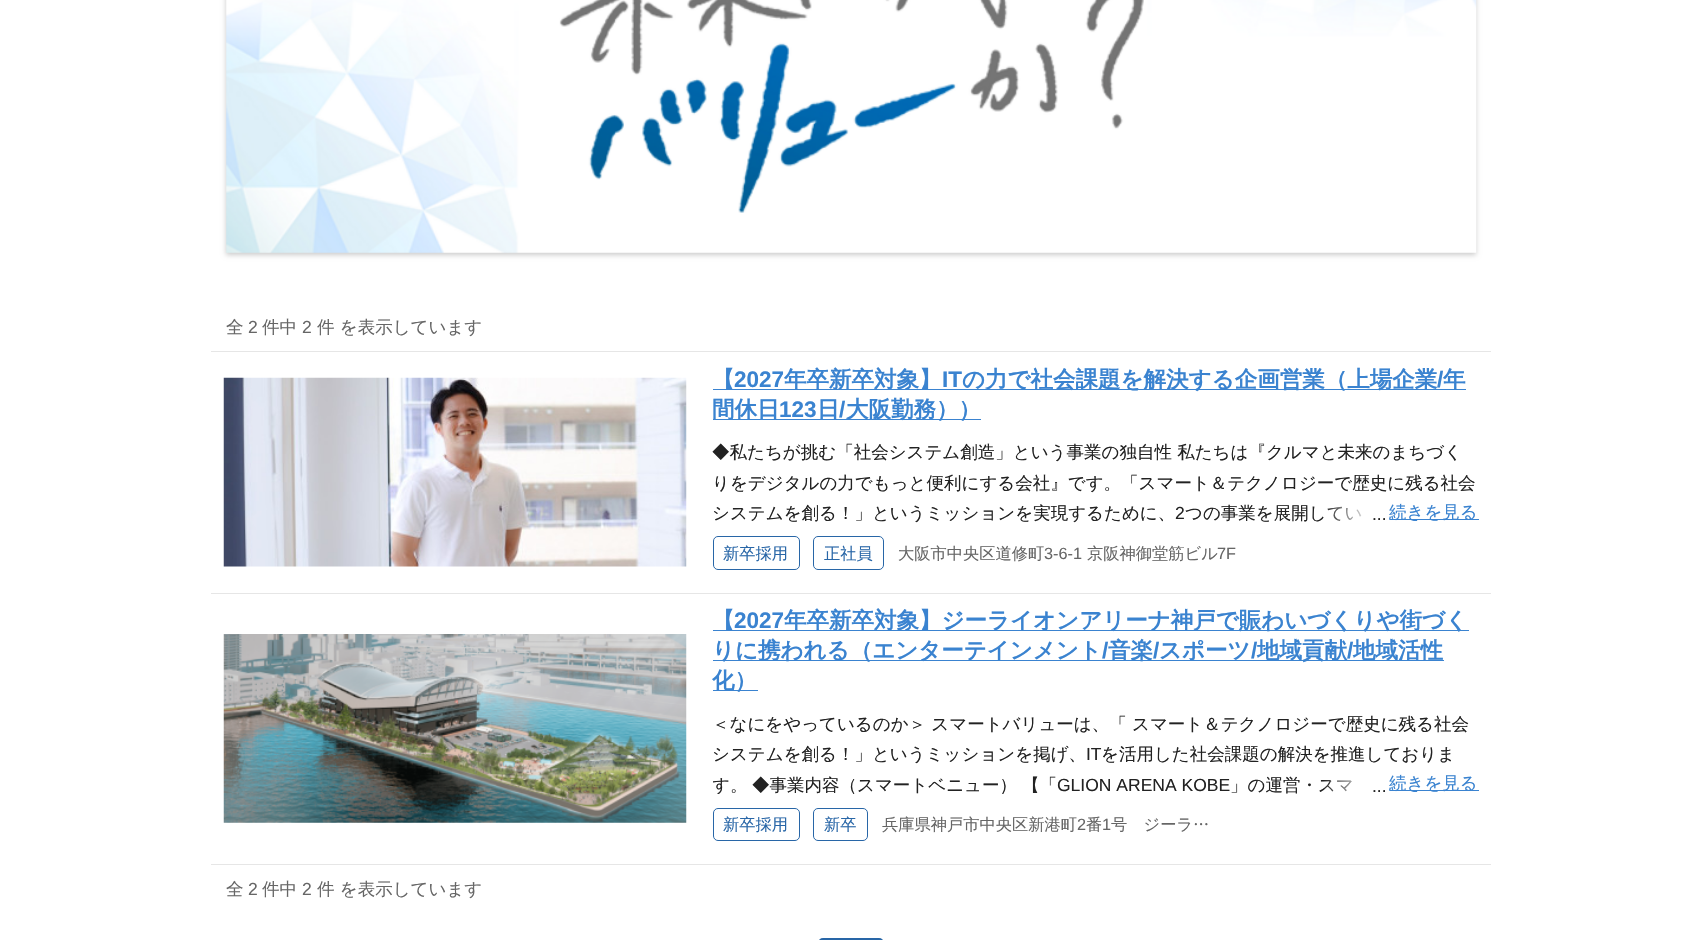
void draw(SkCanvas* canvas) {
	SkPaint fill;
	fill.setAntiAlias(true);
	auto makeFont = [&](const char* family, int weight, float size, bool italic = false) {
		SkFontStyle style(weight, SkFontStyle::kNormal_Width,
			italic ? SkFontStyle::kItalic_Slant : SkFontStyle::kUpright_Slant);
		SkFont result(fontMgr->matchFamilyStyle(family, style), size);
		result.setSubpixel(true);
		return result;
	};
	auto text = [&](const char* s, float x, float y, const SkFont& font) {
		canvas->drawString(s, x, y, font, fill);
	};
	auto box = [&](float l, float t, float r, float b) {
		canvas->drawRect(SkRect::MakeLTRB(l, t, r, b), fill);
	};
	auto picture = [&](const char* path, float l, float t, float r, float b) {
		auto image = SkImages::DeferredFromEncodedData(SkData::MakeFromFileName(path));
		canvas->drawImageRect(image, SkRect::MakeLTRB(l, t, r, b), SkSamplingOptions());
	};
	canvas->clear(0xFFFFFFFF);
	fill.setColor(0xFFCCCCCC);
	fill.setMaskFilter(SkMaskFilter::MakeBlur(kNormal_SkBlurStyle, 2.5f));
	canvas->drawRect(SkRect::MakeLTRB(226, -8, 1476, 255), fill);
	fill.setMaskFilter(nullptr);
	picture("image0.png", 226, 0, 1477, 253);
	fill.setColor(0xFFE6E6E6);
	box(211, 351, 1491, 352);
	picture("image1.png", 223, 377, 687, 567);
	fill.setColor(0xFF3A83D0);
	box(713, 389, 1466, 390);
	box(713, 419, 981, 420);
	box(1390, 519, 1479, 520);
	fill.setStyle(SkPaint::kStroke_Style);
	fill.setStrokeWidth(1);
	fill.setColor(0xFF2866A7);
	canvas->drawRoundRect(SkRect::MakeLTRB(713.5f, 536.5f, 799.5f, 569.5f), 4.5f, 4.5f, fill);
	canvas->drawRoundRect(SkRect::MakeLTRB(813.5f, 536.5f, 883.5f, 569.5f), 4.5f, 4.5f, fill);
	fill.setStyle(SkPaint::kFill_Style);
	fill.setColor(0xFFE6E6E6);
	box(211, 593, 1491, 594);
	picture("image2.png", 223, 634, 687, 823);
	fill.setColor(0xFF3A83D0);
	box(713, 630, 1469, 631);
	box(713, 660, 1444, 661);
	box(713, 690, 758, 691);
	box(1390, 790, 1479, 791);
	fill.setStyle(SkPaint::kStroke_Style);
	fill.setColor(0xFF2866A7);
	canvas->drawRoundRect(SkRect::MakeLTRB(713.5f, 808.5f, 799.5f, 840.5f), 4.5f, 4.5f, fill);
	canvas->drawRoundRect(SkRect::MakeLTRB(813.5f, 808.5f, 867.5f, 840.5f), 4.5f, 4.5f, fill);
	fill.setStyle(SkPaint::kFill_Style);
	fill.setColor(0xFFE6E6E6);
	box(211, 864, 1491, 865);
	fill.setStyle(SkPaint::kStroke_Style);
	fill.setStrokeWidth(3);
	fill.setColor(0xFF2866A7);
	canvas->drawRoundRect(SkRect::MakeLTRB(819.5f, 939.5f, 882.5f, 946.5f), 3.5f, 3.5f, fill);
	auto font1 = makeFont("WenQuanYi Zen Hei", 500, 17.5f);
	fill.setStyle(SkPaint::kFill_Style);
	fill.setColor(0xFF666666);
	text("全", 226, 333, font1);
	auto font2 = makeFont("Liberation Sans", 400, 17.5f);
	text("2", 248, 333, font2);
	text("件中", 262, 333, font1);
	text("2", 302, 333, font2);
	text("件 を表示しています", 317, 333, font1);
	auto font3 = makeFont("WenQuanYi Zen Hei", 700, 22.5f);
	fill.setColor(0xFF3A83D0);
	text("【", 712, 387, font3);
	auto font4 = makeFont("Liberation Sans", 700, 22.5f);
	text("2027", 734, 387, font4);
	text("年卒新卒対象】", 784, 387, font3);
	text("IT", 942, 387, font4);
	text("の力で社会課題を解決する企画営業（上場企業", 962, 387, font3);
	text("/", 1437, 387, font4);
	text("年", 1443, 387, font3);
	text("間休日", 712, 417, font3);
	text("123", 779, 417, font4);
	text("日", 817, 417, font3);
	text("/", 839, 417, font4);
	text("大阪勤務））", 846, 417, font3);
	fill.setColor(0xFF222222);
	text("◆私たちが挑む「社会システム創造」という事業の独自性 私たちは『クルマと未来のまちづく", 712, 458, font1);
	text("りをデジタルの力でもっと便利にする会社』です。「スマート＆テクノロジーで歴史に残る社会", 712, 489, font1);
	text("システムを創る！」というミッションを実現するために、", 712, 519, font1);
	text("2", 1175, 519, font2);
	text("つの事業を展開してい", 1185, 519, font1);
	{
		const SkColor colors[] = {0x00FFFFFF, 0xFFFFFFFF};
		const float stops[] = {0, 0.32f};
		const SkPoint ends[] = {{1323, 513}, {1479, 513}};
		fill.setShader(SkGradientShader::MakeLinear(ends, colors, stops, 2, SkTileMode::kClamp));
		fill.setAlpha(255);
	}
	box(1327, 506, 1361, 521);
	fill.setShader(nullptr);
	fill.setColor(0xFF222222);
	text("...", 1372, 520, font2);
	fill.setColor(0xFF3A83D0);
	text("続きを見る", 1389, 518, font1);
	auto font5 = makeFont("WenQuanYi Zen Hei", 500, 16.25f);
	fill.setColor(0xFF2866A7);
	text("新卒採用", 723, 559, font5);
	text("正社員", 824, 559, font5);
	fill.setColor(0xFF666666);
	text("大阪市中央区道修町", 898, 559, font5);
	auto font6 = makeFont("Liberation Sans", 400, 16.25f);
	text("3-6-1", 1044, 559, font6);
	text("京阪神御堂筋ビル", 1087, 559, font5);
	text("7F", 1217, 559, font6);
	fill.setColor(0xFF3A83D0);
	text("【", 712, 628, font3);
	text("2027", 734, 628, font4);
	text("年卒新卒対象】ジーライオンアリーナ神戸で賑わいづくりや街づく", 784, 628, font3);
	text("りに携われる（エンターテインメント", 712, 658, font3);
	text("/", 1102, 658, font4);
	text("音楽", 1108, 658, font3);
	text("/", 1153, 658, font4);
	text("スポーツ", 1159, 658, font3);
	text("/", 1251, 658, font4);
	text("地域貢献", 1257, 658, font3);
	text("/", 1347, 658, font4);
	text("地域活性", 1353, 658, font3);
	text("化）", 712, 688, font3);
	fill.setColor(0xFF222222);
	text("＜なにをやっているのか＞ スマートバリューは、「 スマート＆テクノロジーで歴史に残る社会", 712, 730, font1);
	text("システムを創る！」というミッションを掲げ、", 712, 760, font1);
	text("IT", 1086, 760, font2);
	text("を活用した社会課題の解決を推進しておりま", 1101, 760, font1);
	canvas->save();
	canvas->clipRect(SkRect::MakeLTRB(713, 709, 1479, 794));
	text("す。", 712, 791, font1);
	canvas->restore();
	text("◆事業内容（スマートベニュー）", 752, 791, font1);
	text("【「", 1022, 791, font1);
	text("GLION ARENA KOBE", 1057, 791, font2);
	text("」の運営・スマ", 1230, 791, font1);
	{
		const SkColor colors[] = {0x00FFFFFF, 0xFFFFFFFF};
		const float stops[] = {0, 0.32f};
		const SkPoint ends[] = {{1323, 784}, {1479, 784}};
		fill.setShader(SkGradientShader::MakeLinear(ends, colors, stops, 2, SkTileMode::kClamp));
		fill.setAlpha(255);
	}
	box(1324, 780, 1352, 792);
	fill.setShader(nullptr);
	fill.setColor(0xFF222222);
	text("...", 1372, 792, font2);
	fill.setColor(0xFF3A83D0);
	text("続きを見る", 1389, 789, font1);
	fill.setColor(0xFF2866A7);
	text("新卒採用", 723, 830, font5);
	text("新卒", 824, 830, font5);
	fill.setColor(0xFF666666);
	text("兵庫県神戸市中央区新港町", 882, 830, font5);
	text("2", 1077, 830, font6);
	text("番", 1086, 830, font5);
	text("1", 1102, 830, font6);
	text("号　ジーラ…", 1111, 830, font5);
	text("全", 226, 895, font1);
	text("2", 248, 895, font2);
	text("件中", 262, 895, font1);
	text("2", 302, 895, font2);
	text("件 を表示しています", 317, 895, font1);
}
